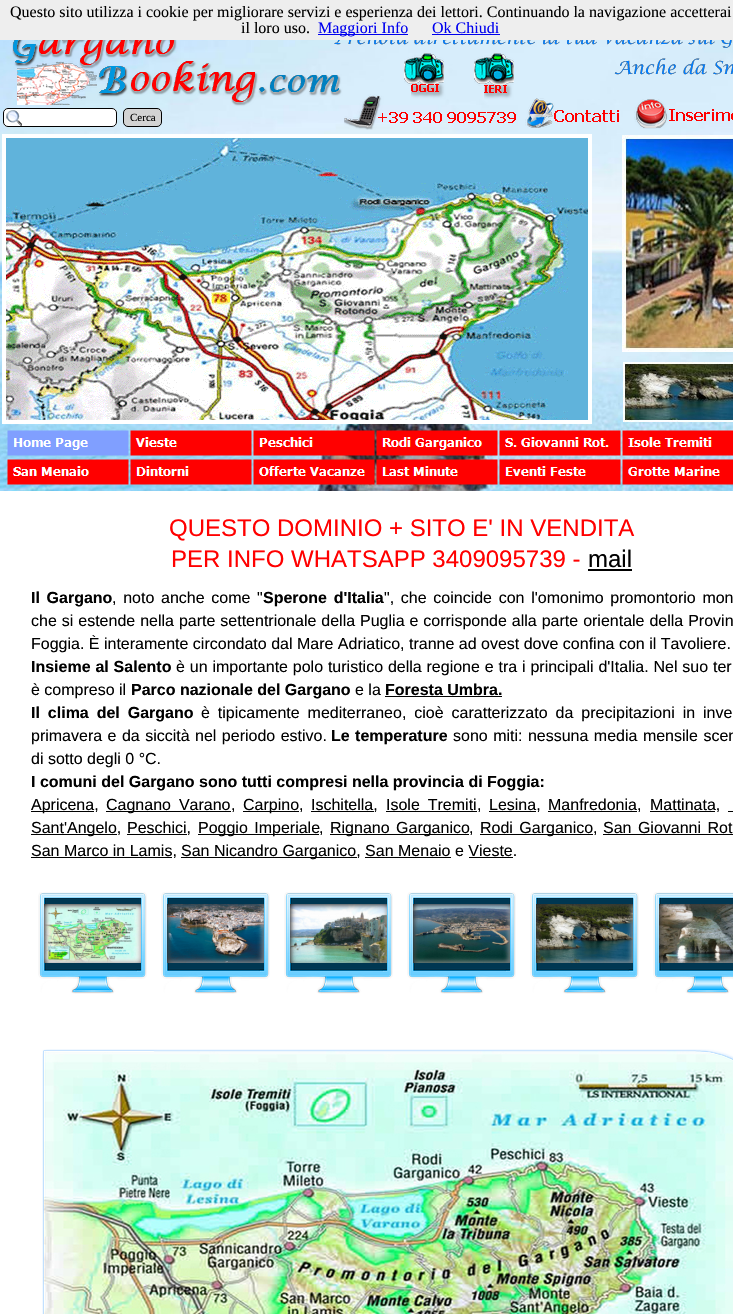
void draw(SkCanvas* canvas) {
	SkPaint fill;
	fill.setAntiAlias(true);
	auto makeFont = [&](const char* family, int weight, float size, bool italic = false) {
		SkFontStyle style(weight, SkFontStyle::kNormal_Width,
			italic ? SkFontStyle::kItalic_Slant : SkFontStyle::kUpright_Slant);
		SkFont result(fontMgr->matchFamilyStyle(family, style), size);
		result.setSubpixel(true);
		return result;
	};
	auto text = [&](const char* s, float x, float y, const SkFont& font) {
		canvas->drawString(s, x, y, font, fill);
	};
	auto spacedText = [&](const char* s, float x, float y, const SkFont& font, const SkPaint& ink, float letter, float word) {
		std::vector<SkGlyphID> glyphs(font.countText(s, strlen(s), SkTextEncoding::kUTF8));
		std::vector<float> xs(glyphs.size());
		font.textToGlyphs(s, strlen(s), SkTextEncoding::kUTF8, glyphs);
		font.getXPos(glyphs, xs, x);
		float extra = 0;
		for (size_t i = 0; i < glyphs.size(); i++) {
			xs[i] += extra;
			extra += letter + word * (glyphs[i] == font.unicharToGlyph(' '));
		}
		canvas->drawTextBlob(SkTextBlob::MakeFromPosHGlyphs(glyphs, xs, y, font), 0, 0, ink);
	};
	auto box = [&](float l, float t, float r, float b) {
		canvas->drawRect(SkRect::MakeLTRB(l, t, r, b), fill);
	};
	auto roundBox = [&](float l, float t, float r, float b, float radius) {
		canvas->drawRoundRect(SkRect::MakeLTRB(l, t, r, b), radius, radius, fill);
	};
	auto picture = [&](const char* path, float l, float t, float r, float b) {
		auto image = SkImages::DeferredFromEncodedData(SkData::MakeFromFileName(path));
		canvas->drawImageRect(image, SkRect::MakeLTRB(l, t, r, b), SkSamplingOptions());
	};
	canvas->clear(0xFFFFFFFF);
	picture("image0.png", 0, 40, 733, 491);
	fill.setColor(0xFFEEEEEE);
	box(0, 0, 733, 40);
	fill.setColor(0xFF0000EE);
	box(318, 34, 408, 35);
	box(432, 34, 500, 35);
	picture("image1.png", 12, 40, 733, 130);
	fill.setColor(0xFFFFFFFF);
	roundBox(3, 108, 117, 127, 5);
	picture("image2.png", 6, 110, 22, 126);
	fill.setStyle(SkPaint::kStroke_Style);
	fill.setStrokeWidth(1);
	fill.setColor(0xFF000000);
	canvas->drawRoundRect(SkRect::MakeLTRB(3.5f, 108.5f, 116.5f, 126.5f), 4.5f, 4.5f, fill);
	fill.setStyle(SkPaint::kFill_Style);
	fill.setColor(0xFFD3D3D3);
	canvas->drawRoundRect(SkRect::MakeLTRB(123.5f, 108.5f, 161.5f, 126.5f), 4.5f, 4.5f, fill);
	fill.setStyle(SkPaint::kStroke_Style);
	fill.setColor(0xFF000000);
	canvas->drawRoundRect(SkRect::MakeLTRB(123.5f, 108.5f, 161.5f, 126.5f), 4.5f, 4.5f, fill);
	picture("image3.png", 2, 134, 592, 424);
	picture("image4.png", 622, 135, 733, 352);
	picture("image5.png", 623, 362, 733, 422);
	picture("image6.png", 7, 430, 129, 456);
	picture("image7.png", 130, 430, 252, 456);
	picture("image8.png", 253, 430, 375, 456);
	picture("image9.png", 376, 430, 498, 456);
	picture("image10.png", 499, 430, 621, 456);
	picture("image11.png", 622, 430, 733, 456);
	picture("image12.png", 7, 459, 129, 485);
	picture("image13.png", 130, 459, 252, 485);
	picture("image14.png", 253, 459, 375, 485);
	picture("image15.png", 376, 459, 498, 485);
	picture("image16.png", 499, 459, 621, 485);
	picture("image17.png", 622, 459, 733, 485);
	fill.setStyle(SkPaint::kFill_Style);
	box(588, 569, 632, 571);
	box(385, 696, 502, 697);
	box(31, 811, 94, 812);
	box(106, 811, 231, 812);
	box(243, 811, 299, 812);
	box(311, 811, 374, 812);
	box(386, 811, 477, 812);
	box(489, 811, 536, 812);
	box(548, 811, 637, 812);
	box(650, 811, 715, 812);
	box(728, 811, 733, 812);
	box(31, 834, 117, 835);
	box(127, 834, 187, 835);
	box(198, 834, 319, 835);
	box(330, 834, 469, 835);
	box(480, 834, 593, 835);
	box(603, 834, 733, 835);
	box(31, 857, 172, 858);
	box(181, 857, 357, 858);
	box(365, 857, 451, 858);
	box(469, 857, 513, 858);
	picture("image18.png", 38, 892, 147, 994);
	picture("image19.png", 161, 892, 270, 994);
	picture("image20.png", 284, 892, 393, 994);
	picture("image21.png", 407, 892, 516, 994);
	picture("image22.png", 530, 892, 639, 994);
	picture("image23.png", 653, 892, 733, 994);
	picture("image24.png", 42, 1049, 733, 1314);
	auto font1 = makeFont("Liberation Serif", 400, 16);
	text("Questo sito utilizza i cookie per migliorare servizi e esperienza dei lettori. Continuando la navigazione accetterai", 10, 17, font1);
	text("il loro uso.", 241, 33, font1);
	fill.setColor(0xFF0000EE);
	text("Maggiori Info", 318, 33, font1);
	text("Ok Chiudi", 432, 33, font1);
	auto font2 = makeFont("Liberation Serif", 400, 11);
	fill.setColor(0xFF000000);
	text("Cerca", 130, 121, font2);
	auto font3 = makeFont("Liberation Sans", 400, 24);
	fill.setColor(0xFFFF0000);
	text("QUESTO DOMINIO + SITO E' IN VENDITA", 169, 536, font3);
	text("PER INFO WHATSAPP 3409095739 -", 171, 567, font3);
	fill.setColor(0xFF000000);
	text("mail", 588, 567, font3);
	auto font4 = makeFont("Liberation Sans", 700, 16);
	spacedText("Il Gargano", 31, 603, font4, fill, 0, 2.25f);
	auto font5 = makeFont("Liberation Sans", 400, 16);
	spacedText(", noto anche come \"", 112, 603, font5, fill, 0, 2.25f);
	spacedText("Sperone d'Italia", 263, 603, font4, fill, 0, 2.25f);
	spacedText("\", che coincide con l'omonimo promontorio mon", 384, 603, font5, fill, 0, 2.25f);
	spacedText("che si estende nella parte settentrionale della Puglia e corrisponde alla parte orientale della Provin", 31, 626, font5, fill, 0, 0.5f);
	text("Foggia. È interamente circondato dal Mare Adriatico, tranne ad ovest dove confina con il Tavoliere.", 31, 649, font5);
	spacedText("Insieme al Salento", 31, 672, font4, fill, 0, 0.4f);
	spacedText("è un importante polo turistico della regione e tra i principali d'Italia. Nel suo ter", 176, 672, font5, fill, 0, 0.4f);
	text("è compreso il", 31, 695, font5);
	text("Parco nazionale del Gargano", 131, 695, font4);
	text("e la", 355, 695, font5);
	text("Foresta Umbra.", 385, 695, font4);
	spacedText("Il clima del Gargano", 31, 718, font4, fill, 0, 3.5f);
	spacedText("è tipicamente mediterraneo, cioè caratterizzato da precipitazioni in inve", 201, 718, font5, fill, 0, 3.5f);
	spacedText("primavera e da siccità nel periodo estivo.", 31, 741, font5, fill, 0, 1);
	spacedText("Le temperature", 331, 741, font4, fill, 0, 1);
	spacedText("sono miti: nessuna media mensile scen", 453, 741, font5, fill, 0, 1);
	text("di sotto degli 0 °C.", 31, 764, font5);
	text("I comuni del Gargano sono tutti compresi nella provincia di Foggia:", 31, 787, font4);
	text("Apricena,", 31, 810, font5);
	spacedText("Cagnano Varano", 106, 810, font5, fill, 0, 3.5f);
	text(",", 231, 810, font5);
	text("Carpino,", 243, 810, font5);
	text("Ischitella,", 311, 810, font5);
	spacedText("Isole Tremiti", 386, 810, font5, fill, 0, 3.5f);
	text(",", 477, 810, font5);
	text("Lesina,", 489, 810, font5);
	text("Manfredonia,", 548, 810, font5);
	text("Mattinata,", 650, 810, font5);
	text("Sant'Angelo,", 31, 833, font5);
	text("Peschici,", 127, 833, font5);
	spacedText("Poggio Imperiale", 198, 833, font5, fill, 0, 2);
	text(",", 319, 833, font5);
	spacedText("Rignano Garganico", 330, 833, font5, fill, 0, 2);
	text(",", 469, 833, font5);
	spacedText("Rodi Garganico", 480, 833, font5, fill, 0, 2);
	text(",", 593, 833, font5);
	spacedText("San Giovanni Rot", 603, 833, font5, fill, 0, 2);
	text("San Marco in Lamis,", 31, 856, font5);
	text("San Nicandro Garganico, San Menaio e Vieste.", 181, 856, font5);
}
